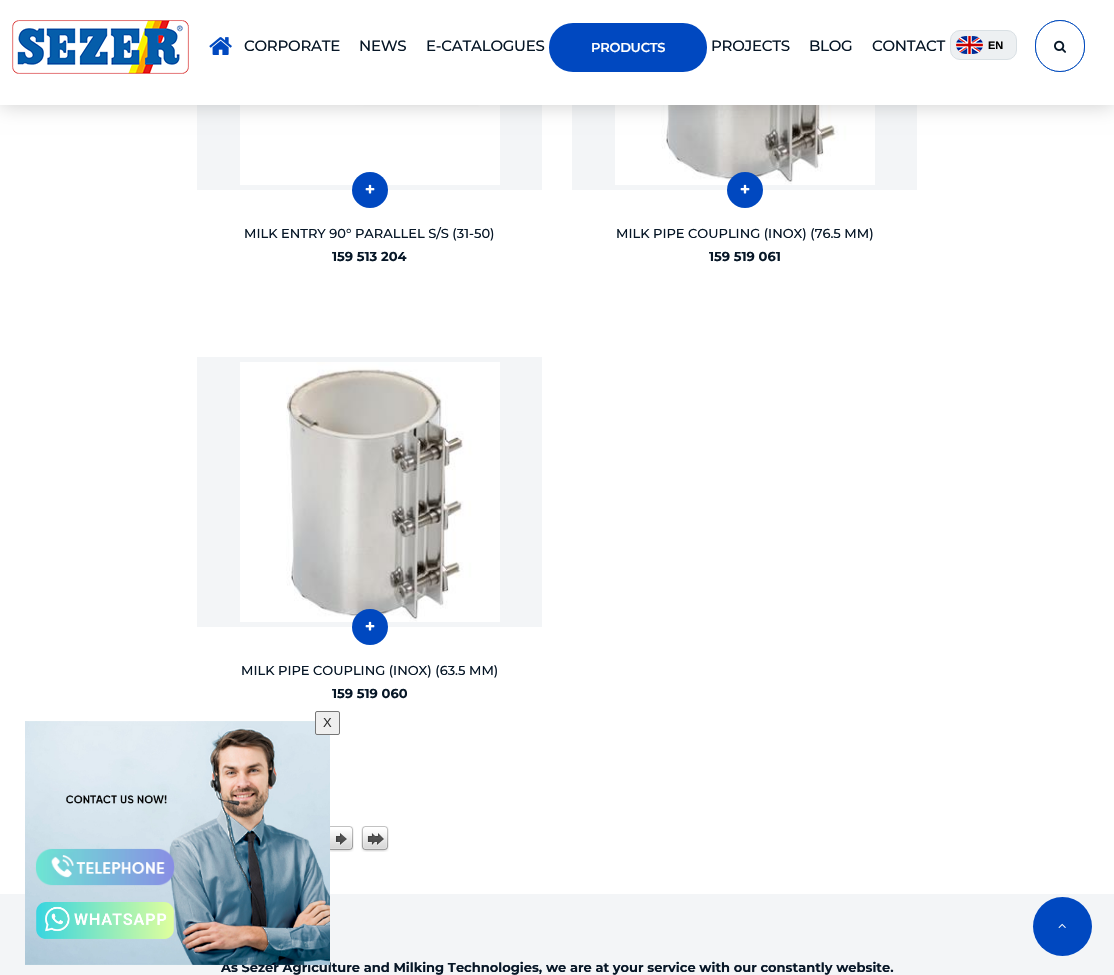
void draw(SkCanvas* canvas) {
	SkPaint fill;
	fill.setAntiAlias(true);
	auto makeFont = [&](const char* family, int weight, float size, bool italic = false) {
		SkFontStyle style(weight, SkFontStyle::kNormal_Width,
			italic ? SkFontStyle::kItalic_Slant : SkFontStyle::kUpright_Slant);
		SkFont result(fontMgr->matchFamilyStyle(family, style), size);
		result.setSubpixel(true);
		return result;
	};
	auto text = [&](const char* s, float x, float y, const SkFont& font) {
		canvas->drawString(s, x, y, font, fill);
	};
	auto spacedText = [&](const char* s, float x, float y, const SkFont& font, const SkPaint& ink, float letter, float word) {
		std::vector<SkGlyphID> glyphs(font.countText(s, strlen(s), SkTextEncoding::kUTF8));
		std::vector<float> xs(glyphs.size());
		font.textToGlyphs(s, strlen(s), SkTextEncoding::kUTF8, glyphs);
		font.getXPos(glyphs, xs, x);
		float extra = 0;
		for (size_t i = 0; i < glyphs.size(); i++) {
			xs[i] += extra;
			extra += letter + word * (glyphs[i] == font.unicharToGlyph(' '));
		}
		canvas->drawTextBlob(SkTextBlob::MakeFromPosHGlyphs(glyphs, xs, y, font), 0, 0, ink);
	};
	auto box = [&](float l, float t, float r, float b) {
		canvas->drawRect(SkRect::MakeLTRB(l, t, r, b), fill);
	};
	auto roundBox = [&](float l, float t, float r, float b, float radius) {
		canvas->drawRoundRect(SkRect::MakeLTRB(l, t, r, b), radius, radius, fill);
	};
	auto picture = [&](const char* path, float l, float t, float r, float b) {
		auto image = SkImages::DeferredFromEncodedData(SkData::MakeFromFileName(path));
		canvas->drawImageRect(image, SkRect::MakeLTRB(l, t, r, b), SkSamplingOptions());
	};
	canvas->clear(0xFFFFFFFF);
	fill.setColor(0xFFF3F5F7);
	box(197, 105, 542, 190);
	picture("image4.png", 240, 105, 500, 185);
	box(572, 105, 917, 190);
	picture("image6.png", 615, 105, 875, 185);
	fill.setColor(0x33000000);
	fill.setMaskFilter(SkMaskFilter::MakeBlur(kNormal_SkBlurStyle, 10));
	canvas->drawRect(SkRect::MakeLTRB(0, -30, 1114, 105), fill);
	fill.setMaskFilter(nullptr);
	fill.setColor(0xFFFFFFFF);
	box(0, 0, 1114, 105);
	picture("image0.png", 12, 20, 189, 74);
	picture("image1.png", 209, 37, 232, 55);
	fill.setColor(0xFF0048C0);
	roundBox(549, 23, 707, 72, 24);
	fill.setColor(0xFFEDF0F2);
	canvas->drawRoundRect(SkRect::MakeLTRB(950.5f, 30.5f, 1016.5f, 59.5f), 9.5f, 9.5f, fill);
	fill.setStyle(SkPaint::kStroke_Style);
	fill.setStrokeWidth(1);
	fill.setColor(0xFFD9E0E4);
	canvas->drawRoundRect(SkRect::MakeLTRB(950.5f, 30.5f, 1016.5f, 59.5f), 9.5f, 9.5f, fill);
	picture("image2.png", 956, 36, 983, 54);
	fill.setColor(0xFF045DAA);
	canvas->drawRoundRect(SkRect::MakeLTRB(1035.5f, 20.5f, 1084.5f, 71.5f), 24.5f, 24.5f, fill);
	fill.setStyle(SkPaint::kFill_Style);
	fill.setColor(0xFFFFFFFF);
	canvas->drawRoundRect(SkRect::MakeLTRB(1035.5f, 20.5f, 1084.5f, 71.5f), 24.5f, 24.5f, fill);
	fill.setStyle(SkPaint::kStroke_Style);
	fill.setColor(0xFF0048C0);
	canvas->drawRoundRect(SkRect::MakeLTRB(1035.5f, 20.5f, 1084.5f, 71.5f), 24.5f, 24.5f, fill);
	picture("image3.png", 1054, 40, 1066, 53);
	fill.setStyle(SkPaint::kFill_Style);
	canvas->drawCircle(370, 190, 18, fill);
	picture("image5.png", 365, 184, 375, 194);
	canvas->drawCircle(745, 190, 18, fill);
	picture("image5.png", 740, 184, 750, 194);
	fill.setColor(0xFFF3F5F7);
	box(197, 357, 542, 627);
	picture("image7.png", 240, 362, 500, 622);
	fill.setColor(0xFF0048C0);
	canvas->drawCircle(370, 627, 18, fill);
	picture("image5.png", 365, 621, 375, 631);
	picture("image8.png", 330, 826, 354, 852);
	picture("image9.png", 361, 826, 389, 852);
	fill.setColor(0xFFF3F5F7);
	box(0, 894, 1114, 975);
	fill.setColor(0xFF0048C0);
	canvas->drawCircle(1062.5f, 926.5f, 29.5f, fill);
	picture("image13.png", 1058, 923, 1066, 928);
	auto font1 = makeFont("Montserrat", 500, 15);
	fill.setColor(0xFF071727);
	spacedText("CORPORATE", 244, 51, font1, fill, -0.25f, 0);
	spacedText("NEWS", 359, 51, font1, fill, -0.25f, 0);
	spacedText("E-CATALOGUES", 426, 51, font1, fill, -0.25f, 0);
	auto font2 = makeFont("Montserrat", 600, 13);
	fill.setColor(0xFFFFFFFF);
	spacedText("PRODUCTS", 591, 52, font2, fill, -0.25f, 0);
	fill.setColor(0xFF071727);
	spacedText("PROJECTS", 711, 51, font1, fill, -0.25f, 0);
	spacedText("BLOG", 809, 51, font1, fill, -0.25f, 0);
	spacedText("CONTACT", 872, 51, font1, fill, -0.25f, 0);
	auto font3 = makeFont("Liberation Sans", 700, 11);
	fill.setColor(0xFF000000);
	text("EN", 988, 49, font3);
	auto font4 = makeFont("Montserrat", 500, 13);
	fill.setColor(0xFF071727);
	text("MILK ENTRY 90° PARALLEL S/S (31-50)", 244, 238, font4);
	auto font5 = makeFont("Montserrat", 700, 13);
	text("159 513 204", 332, 261, font5);
	text("MILK PIPE COUPLING (INOX) (76.5 MM)", 616, 238, font4);
	text("159 519 061", 709, 261, font5);
	text("MILK PIPE COUPLING (INOX) (63.5 MM)", 241, 675, font4);
	text("159 519 060", 332, 698, font5);
	text("As Sezer Agriculture and Milking Technologies, we are at your service with our constantly website.", 221, 972, font5);
	picture("image10.png", 25, 721, 330, 965);
	picture("image12.png", 36, 902, 174, 939);
	picture("image11.png", 35, 848, 175, 886);
	fill.setColor(0xFFEFEFEF);
	canvas->drawRoundRect(SkRect::MakeLTRB(315.5f, 711.5f, 339.5f, 734.5f), 1.5f, 1.5f, fill);
	fill.setStyle(SkPaint::kStroke_Style);
	fill.setColor(0xFF767676);
	canvas->drawRoundRect(SkRect::MakeLTRB(315.5f, 711.5f, 339.5f, 734.5f), 1.5f, 1.5f, fill);
	auto font6 = makeFont("Liberation Sans", 400, 13);
	fill.setStyle(SkPaint::kFill_Style);
	fill.setColor(0xFF333333);
	text("X", 323, 727, font6);
}
